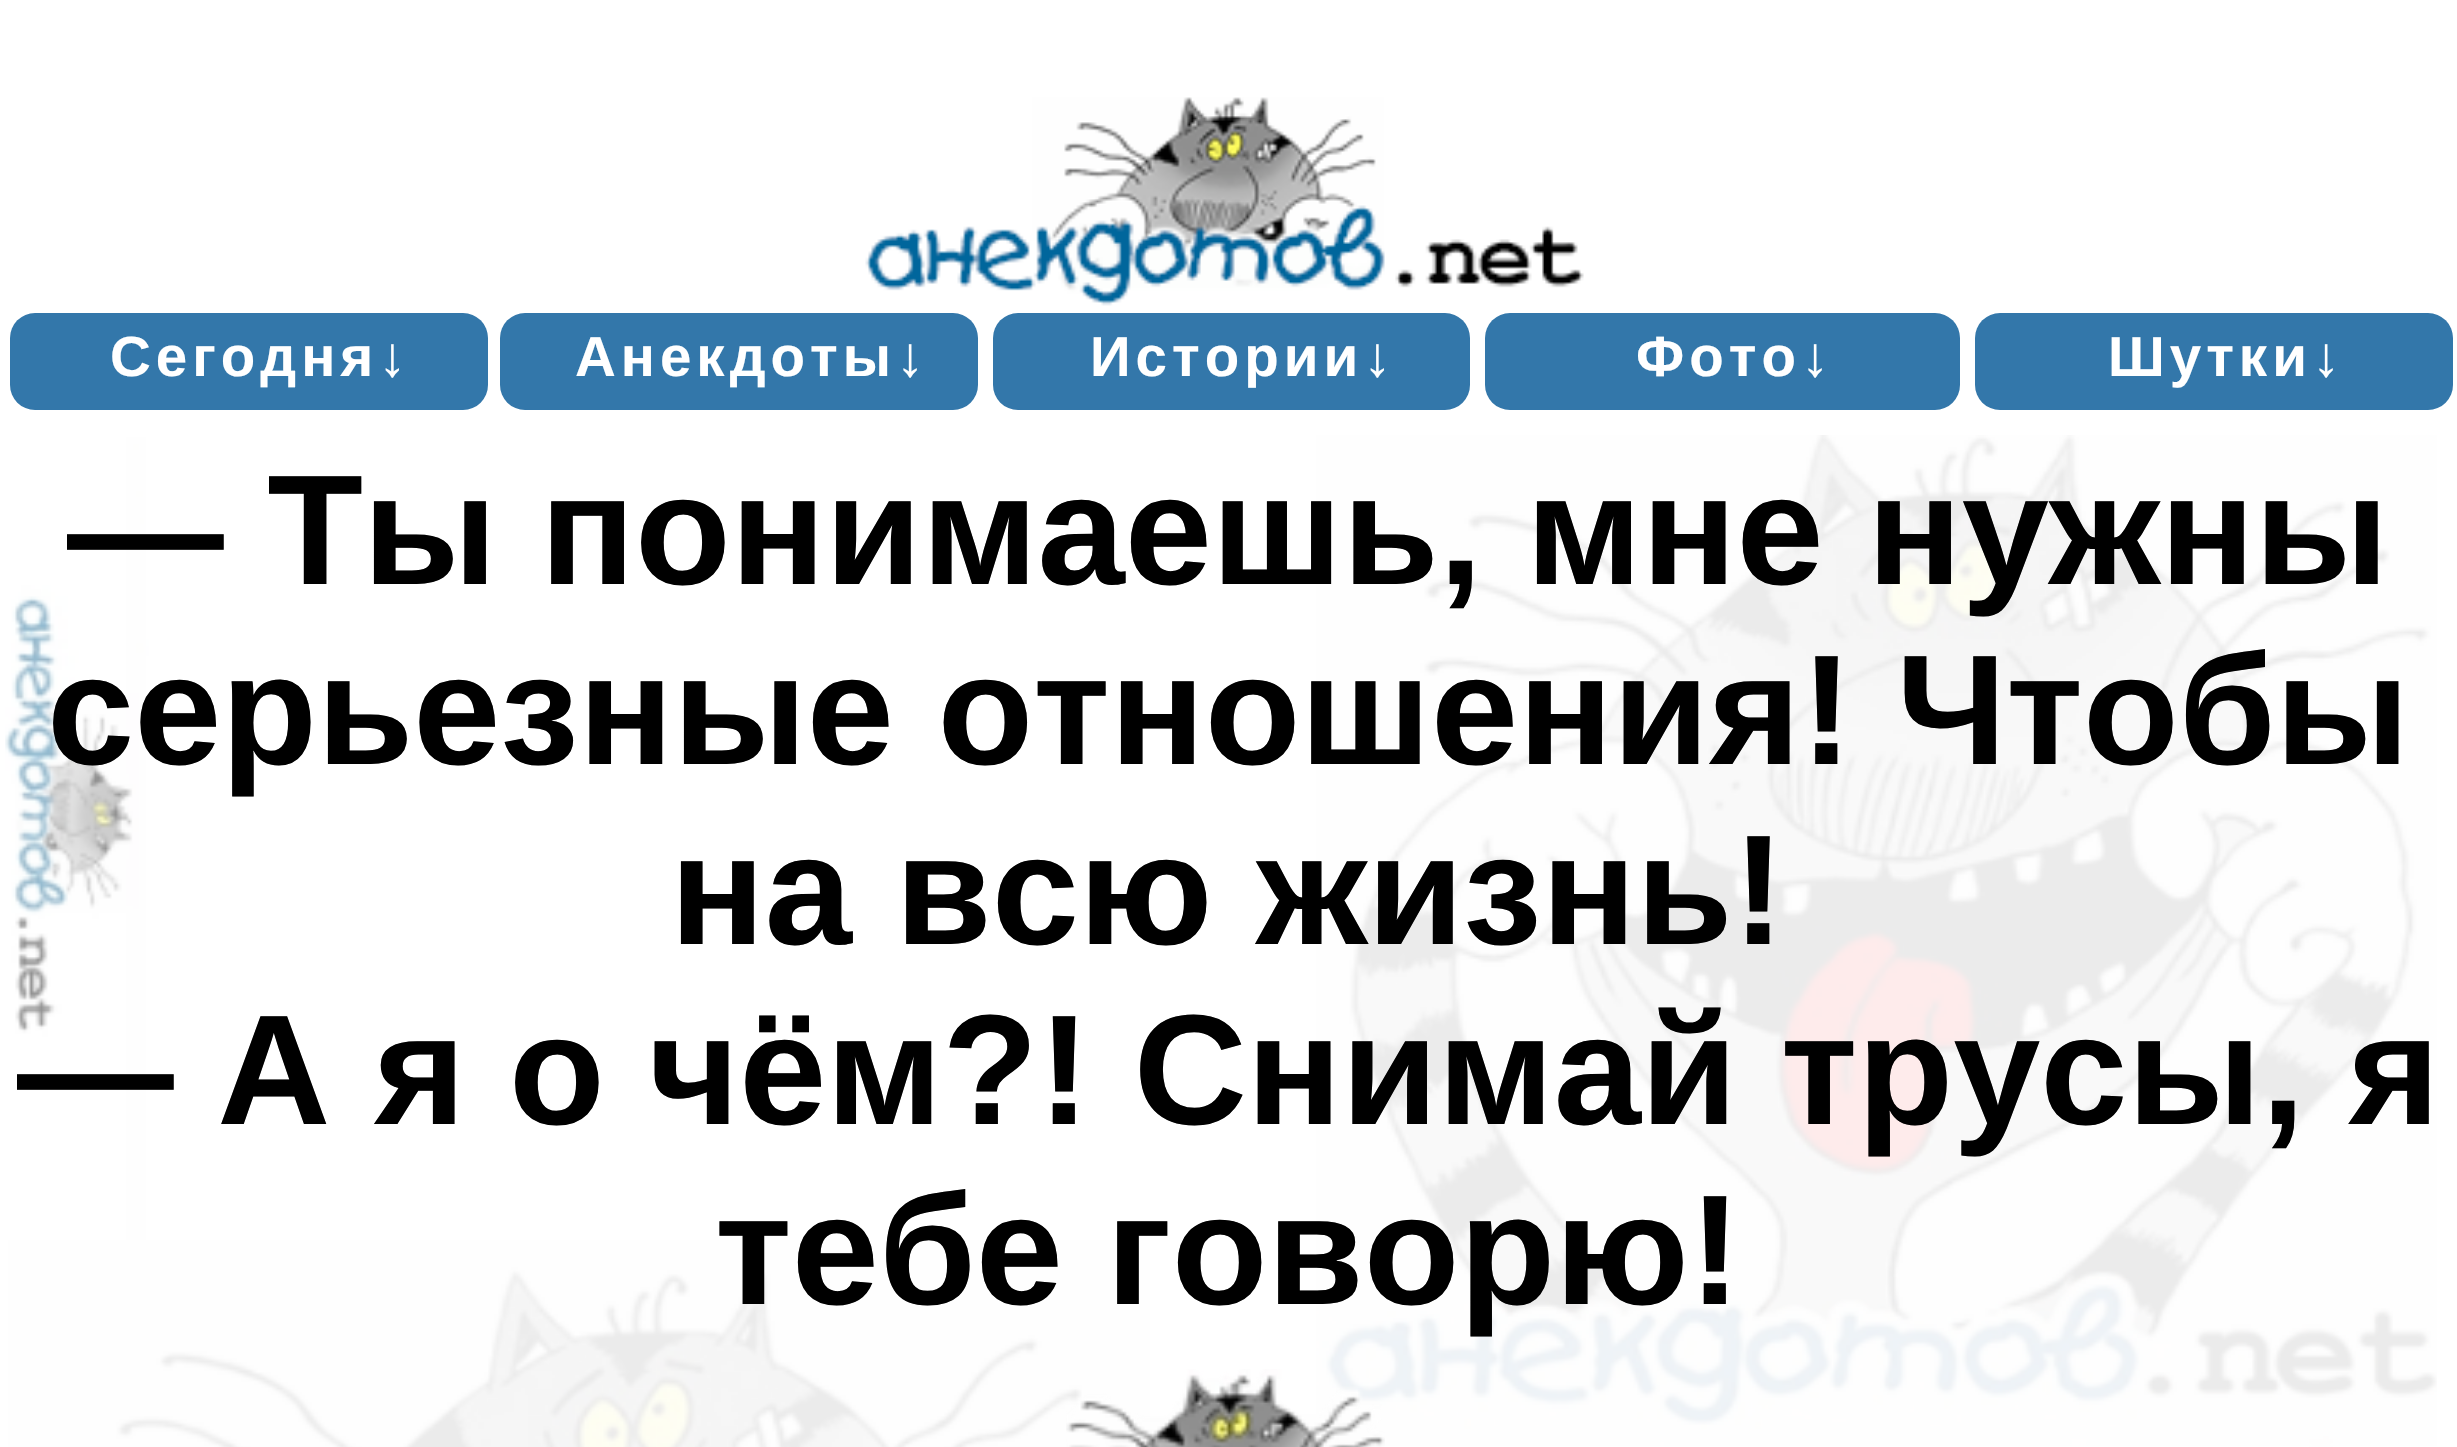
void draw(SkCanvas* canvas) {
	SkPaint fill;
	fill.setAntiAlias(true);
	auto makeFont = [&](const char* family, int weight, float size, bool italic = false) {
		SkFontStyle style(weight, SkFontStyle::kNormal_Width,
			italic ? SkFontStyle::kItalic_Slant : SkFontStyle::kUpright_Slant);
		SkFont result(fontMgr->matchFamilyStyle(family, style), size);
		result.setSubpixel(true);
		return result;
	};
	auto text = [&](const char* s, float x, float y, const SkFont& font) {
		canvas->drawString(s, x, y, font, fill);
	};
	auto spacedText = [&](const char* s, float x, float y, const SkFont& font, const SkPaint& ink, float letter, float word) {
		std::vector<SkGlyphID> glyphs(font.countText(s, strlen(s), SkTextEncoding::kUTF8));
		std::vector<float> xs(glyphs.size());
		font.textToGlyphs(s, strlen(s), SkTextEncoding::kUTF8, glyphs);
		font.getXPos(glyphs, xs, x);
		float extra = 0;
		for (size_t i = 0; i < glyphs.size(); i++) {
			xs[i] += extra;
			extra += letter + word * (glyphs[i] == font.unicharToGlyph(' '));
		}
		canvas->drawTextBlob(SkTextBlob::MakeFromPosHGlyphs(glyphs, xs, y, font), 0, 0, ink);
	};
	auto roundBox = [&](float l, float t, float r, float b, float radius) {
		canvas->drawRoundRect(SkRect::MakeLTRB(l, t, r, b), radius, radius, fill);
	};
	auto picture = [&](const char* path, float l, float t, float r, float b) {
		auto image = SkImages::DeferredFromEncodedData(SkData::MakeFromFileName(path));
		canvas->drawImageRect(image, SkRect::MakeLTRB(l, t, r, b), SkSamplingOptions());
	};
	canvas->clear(0xFFFFFFFF);
	picture("image0.png", 865, 97, 1584, 306);
	fill.setColor(0xFF3377AA);
	roundBox(10, 313, 488, 410, 25);
	roundBox(500, 313, 978, 410, 25);
	roundBox(993, 313, 1470, 410, 25);
	roundBox(1485, 313, 1960, 410, 25);
	roundBox(1975, 313, 2453, 410, 25);
	picture("image1.png", 5, 435, 2437, 1447);
	picture("image2.png", 1066, 1369, 1385, 1447);
	auto font1 = makeFont("Liberation Sans", 700, 56.5f);
	fill.setColor(0xFFFFFFFF);
	spacedText("Сегодня↓", 110, 376, font1, fill, 5, 0);
	spacedText("Анекдоты↓", 575, 376, font1, fill, 5, 0);
	spacedText("Истории↓", 1090, 376, font1, fill, 5, 0);
	spacedText("Фото↓", 1636, 376, font1, fill, 5, 0);
	spacedText("Шутки↓", 2108, 376, font1, fill, 5, 0);
	auto font2 = makeFont("Liberation Sans", 700, 156.7f);
	fill.setColor(0xFF000000);
	text("— Ты понимаешь, мне нужны", 67, 584, font2);
	text("серьезные отношения! Чтобы", 47, 764, font2);
	text("на всю жизнь!", 670, 944, font2);
	text("— А я о чём?! Снимай трусы, я", 17, 1124, font2);
	text("тебе говорю!", 715, 1304, font2);
}
